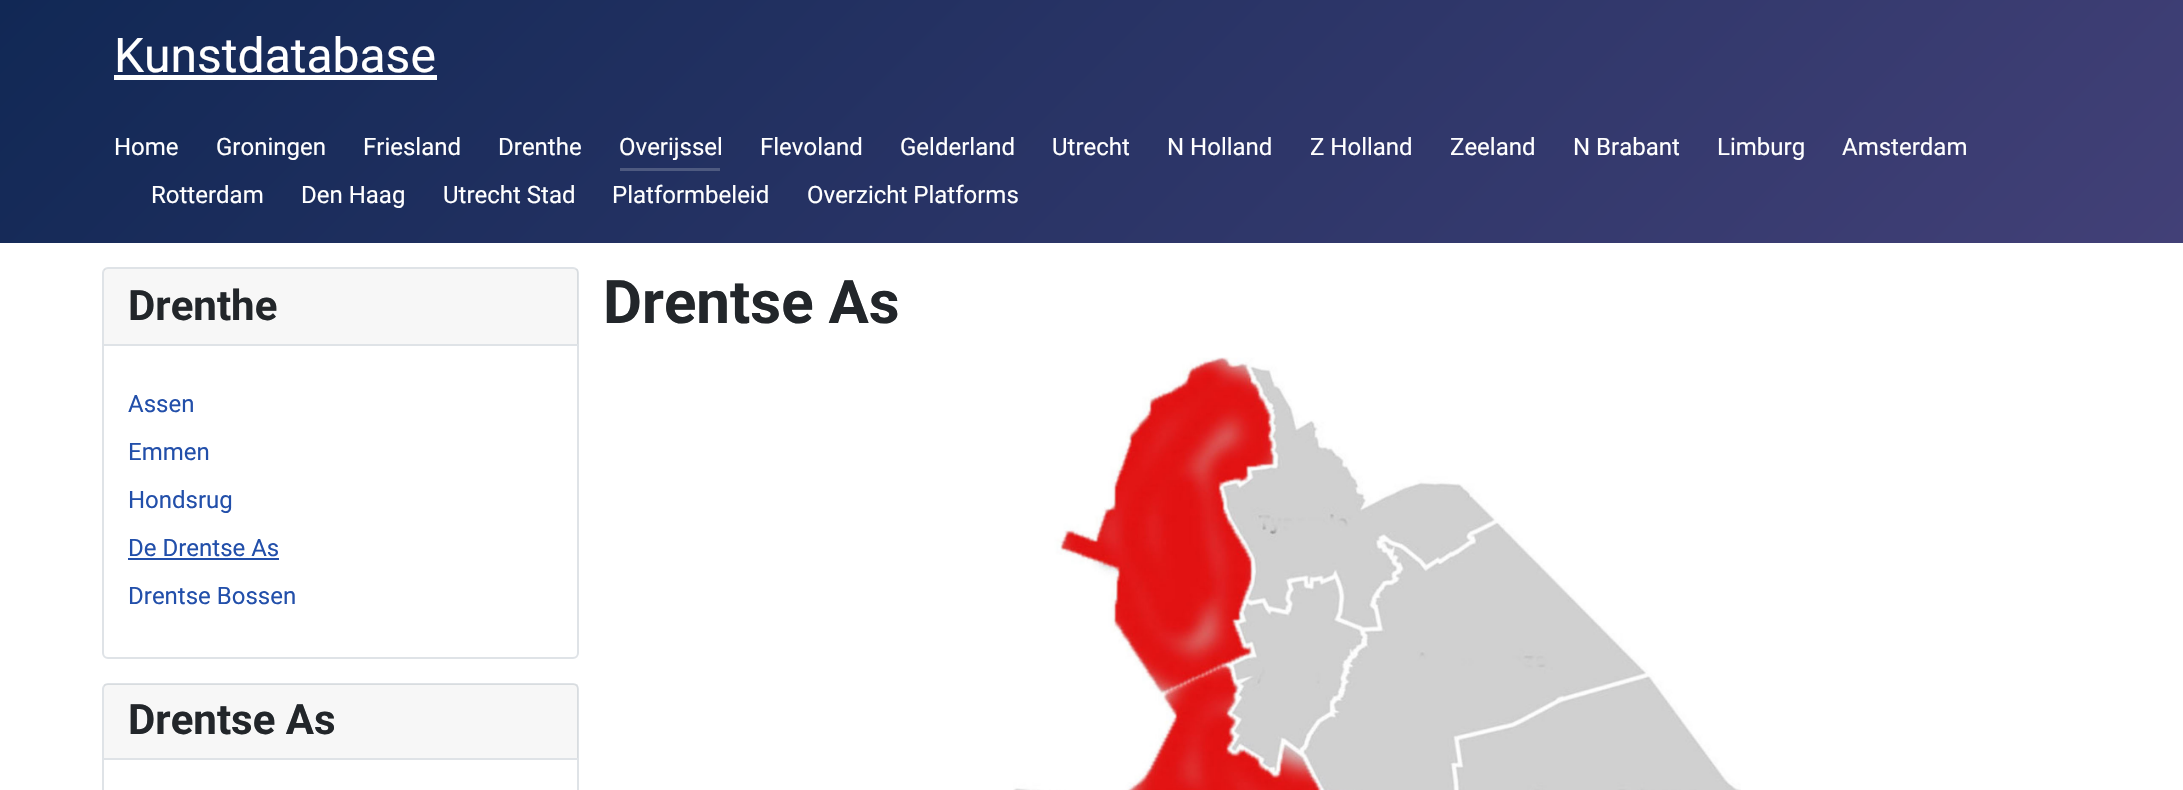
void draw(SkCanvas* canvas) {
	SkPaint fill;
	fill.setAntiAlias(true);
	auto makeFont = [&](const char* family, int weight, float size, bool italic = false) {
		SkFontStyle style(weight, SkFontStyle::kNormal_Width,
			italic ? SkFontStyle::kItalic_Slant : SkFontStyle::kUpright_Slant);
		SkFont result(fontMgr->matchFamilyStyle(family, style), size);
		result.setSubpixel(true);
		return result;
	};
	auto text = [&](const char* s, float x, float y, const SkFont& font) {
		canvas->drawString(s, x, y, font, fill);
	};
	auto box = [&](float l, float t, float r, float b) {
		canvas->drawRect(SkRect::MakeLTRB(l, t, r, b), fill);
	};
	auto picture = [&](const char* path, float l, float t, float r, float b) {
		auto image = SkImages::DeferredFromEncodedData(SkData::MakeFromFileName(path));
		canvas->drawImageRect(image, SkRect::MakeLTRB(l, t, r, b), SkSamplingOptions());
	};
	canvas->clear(0xFFFFFFFF);
	{
		const SkColor colors[] = {0xFF112855, 0xFF424077};
		const float stops[] = {0, 1};
		const SkPoint ends[] = {{485, -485}, {1699, 728}};
		fill.setShader(SkGradientShader::MakeLinear(ends, colors, stops, 2, SkTileMode::kClamp));
		fill.setAlpha(255);
	}
	box(0, 0, 2183, 243);
	fill.setShader(nullptr);
	fill.setColor(0xFFFFFFFF);
	box(114, 75, 437, 80);
	fill.setColor(0xFF4E5A80);
	box(620, 168, 720, 171);
	fill.setStyle(SkPaint::kStroke_Style);
	fill.setStrokeWidth(2);
	fill.setColor(0xFFDFE3E7);
	canvas->drawRoundRect(SkRect::MakeLTRB(103, 268, 578, 658), 5, 5, fill);
	fill.setStyle(SkPaint::kFill_Style);
	fill.setColor(0x08000000);
	box(104, 269, 578, 344);
	fill.setColor(0xFFDFE3E7);
	box(104, 344, 578, 346);
	fill.setColor(0xFF224FAA);
	box(128, 558, 279, 560);
	fill.setStyle(SkPaint::kStroke_Style);
	fill.setColor(0xFFDFE3E7);
	canvas->drawRoundRect(SkRect::MakeLTRB(103, 684, 578, 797), 5, 5, fill);
	fill.setStyle(SkPaint::kFill_Style);
	fill.setColor(0x08000000);
	box(104, 684, 578, 758);
	fill.setColor(0xFFDFE3E7);
	box(104, 758, 578, 760);
	picture("image0.png", 1013, 357, 1741, 790);
	auto font1 = makeFont("Roboto", 400, 48);
	fill.setColor(0xFFFFFFFF);
	text("Kunstdatabase", 114, 72, font1);
	auto font2 = makeFont("Roboto", 400, 24);
	text("Home", 114, 155, font2);
	text("Groningen", 216, 155, font2);
	text("Friesland", 363, 155, font2);
	text("Drenthe", 498, 155, font2);
	text("Overijssel", 619, 155, font2);
	text("Flevoland", 760, 155, font2);
	text("Gelderland", 900, 155, font2);
	text("Utrecht", 1052, 155, font2);
	text("N Holland", 1167, 155, font2);
	text("Z Holland", 1310, 155, font2);
	text("Zeeland", 1450, 155, font2);
	text("N Brabant", 1573, 155, font2);
	text("Limburg", 1717, 155, font2);
	text("Amsterdam", 1842, 155, font2);
	text("Rotterdam", 151, 203, font2);
	text("Den Haag", 301, 203, font2);
	text("Utrecht Stad", 443, 203, font2);
	text("Platformbeleid", 612, 203, font2);
	text("Overzicht Platforms", 807, 203, font2);
	auto font3 = makeFont("Roboto", 700, 42);
	fill.setColor(0xFF22262A);
	text("Drenthe", 128, 320, font3);
	fill.setColor(0xFF224FAA);
	text("Assen", 128, 412, font2);
	text("Emmen", 128, 460, font2);
	text("Hondsrug", 128, 508, font2);
	text("De Drentse As", 128, 556, font2);
	text("Drentse Bossen", 128, 604, font2);
	fill.setColor(0xFF22262A);
	text("Drentse As", 128, 734, font3);
	auto font4 = makeFont("Roboto", 700, 60);
	text("Drentse As", 603, 323, font4);
}
